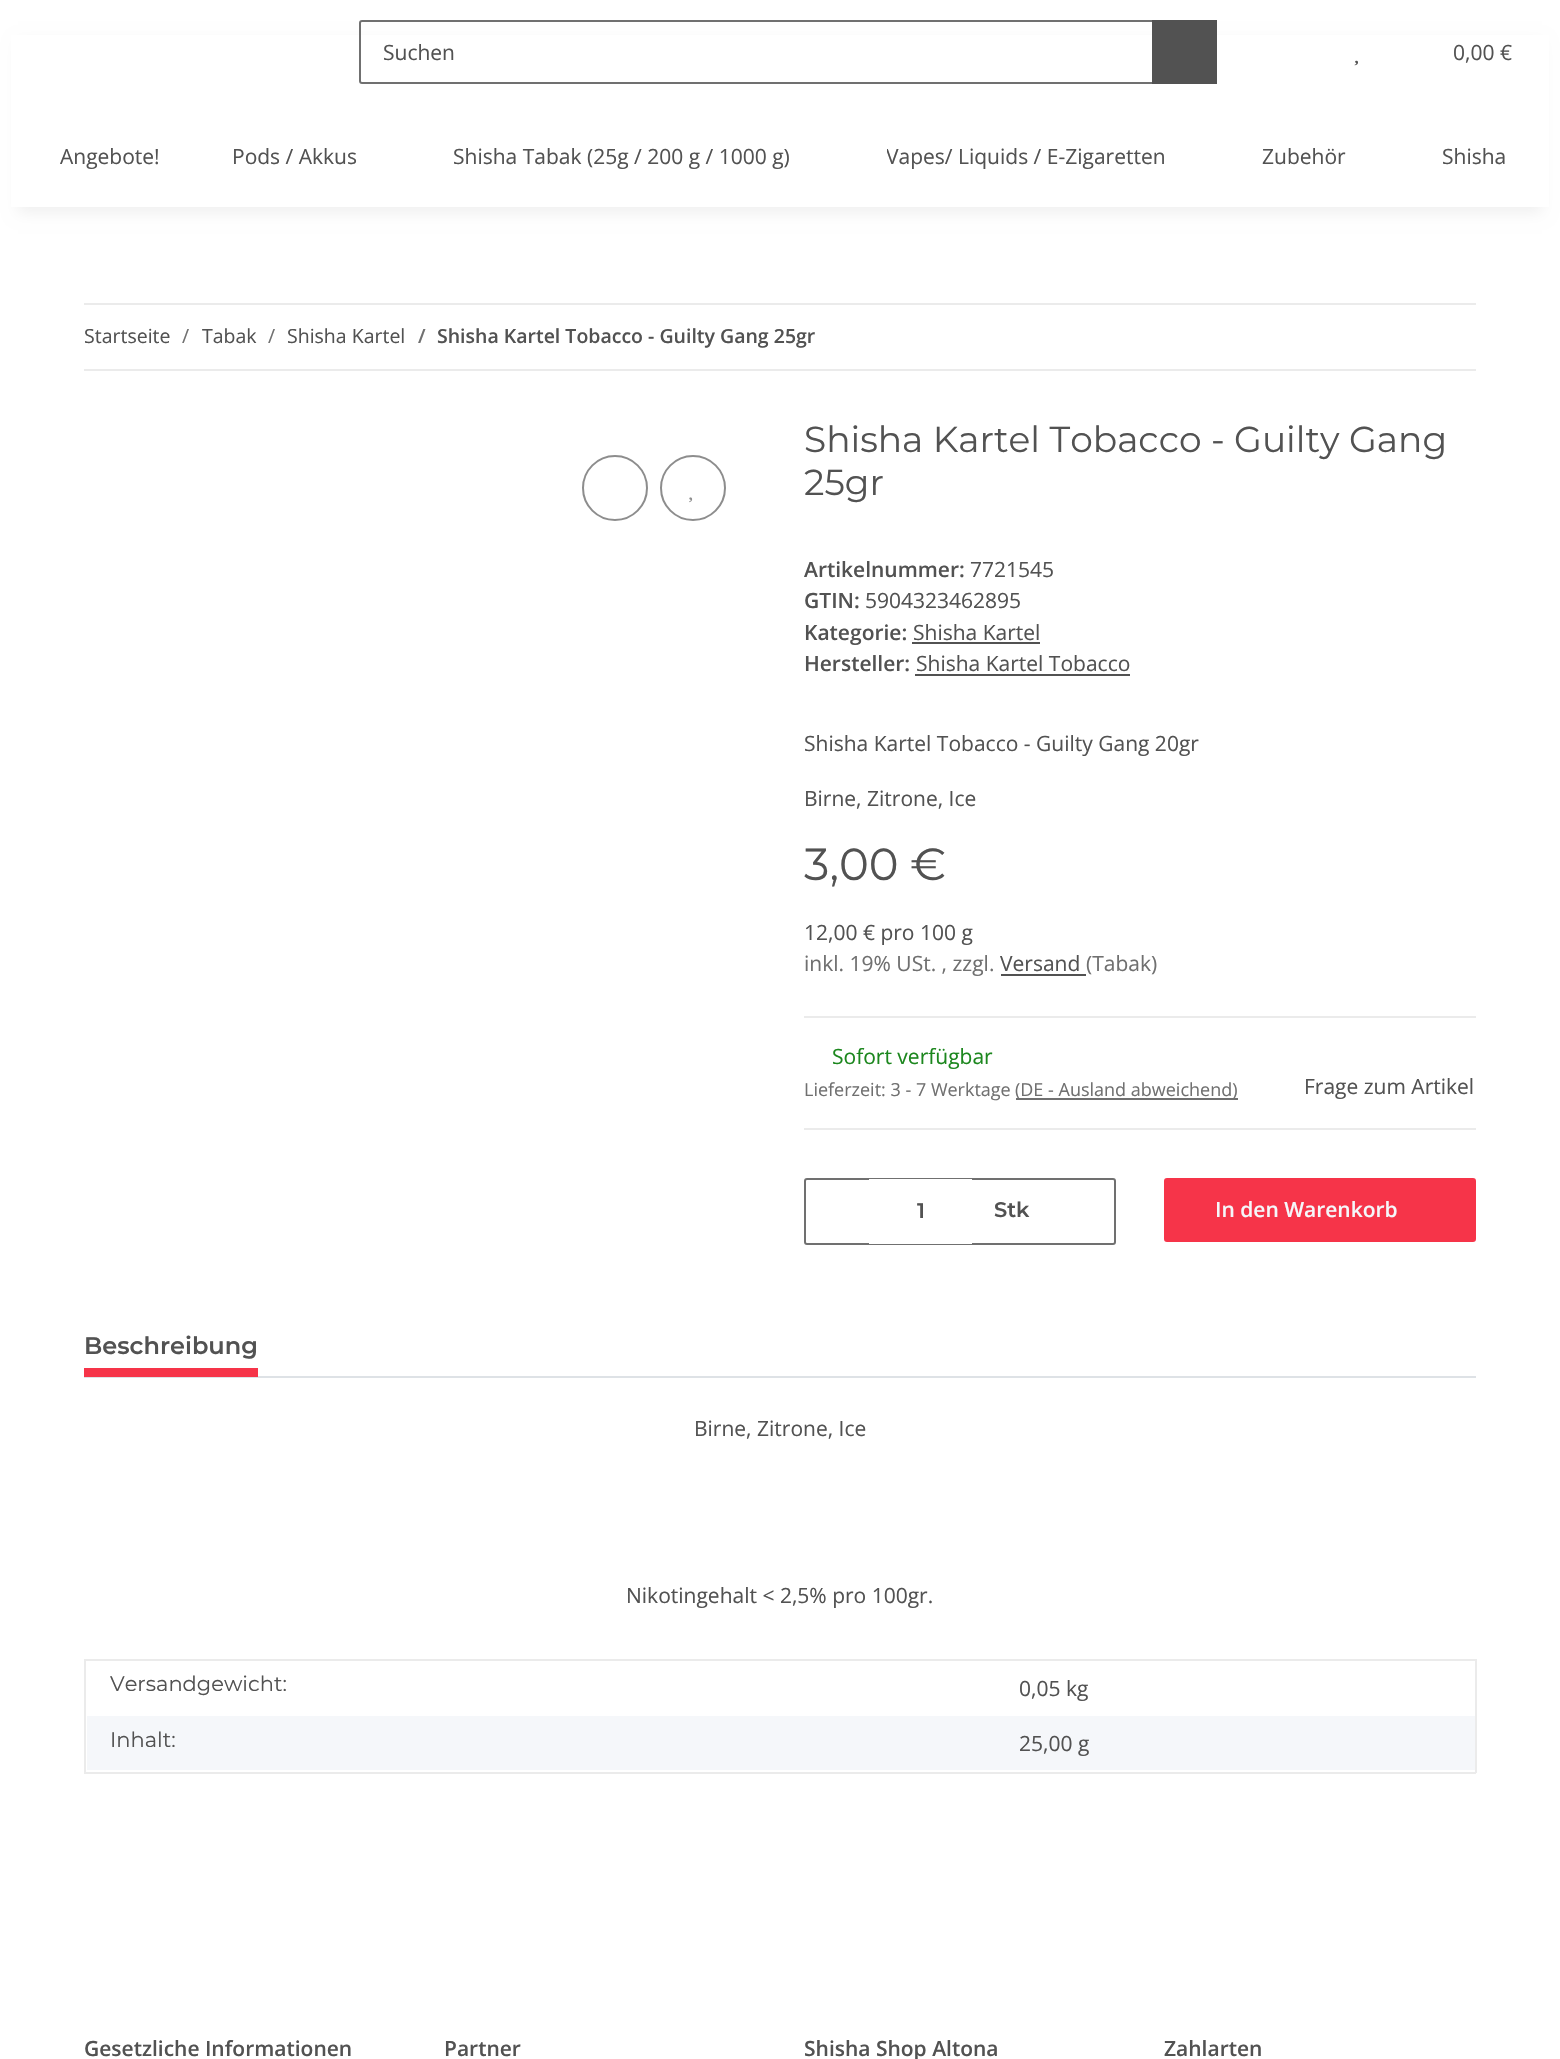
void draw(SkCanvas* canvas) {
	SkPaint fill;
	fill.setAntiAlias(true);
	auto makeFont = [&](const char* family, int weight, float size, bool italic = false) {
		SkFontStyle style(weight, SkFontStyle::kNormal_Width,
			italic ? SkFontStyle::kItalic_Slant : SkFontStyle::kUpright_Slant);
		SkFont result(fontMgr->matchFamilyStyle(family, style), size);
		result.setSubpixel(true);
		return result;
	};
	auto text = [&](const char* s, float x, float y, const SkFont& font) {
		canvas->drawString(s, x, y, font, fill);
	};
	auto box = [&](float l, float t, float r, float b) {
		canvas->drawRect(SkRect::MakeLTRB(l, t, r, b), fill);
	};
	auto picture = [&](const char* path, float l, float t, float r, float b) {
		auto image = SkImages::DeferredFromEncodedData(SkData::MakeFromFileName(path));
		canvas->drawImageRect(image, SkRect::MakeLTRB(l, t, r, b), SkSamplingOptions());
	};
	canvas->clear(0xFFFFFFFF);
	fill.setColor(0x0F000000);
	fill.setMaskFilter(SkMaskFilter::MakeBlur(kNormal_SkBlurStyle, 7));
	canvas->drawRect(SkRect::MakeLTRB(18, 42, 1542, 213), fill);
	fill.setMaskFilter(nullptr);
	fill.setColor(0xFFFFFFFF);
	box(11, 35, 1549, 207);
	fill.setStyle(SkPaint::kStroke_Style);
	fill.setStrokeWidth(2);
	fill.setColor(0xFF707070);
	canvas->drawPath(SkPathBuilder().moveTo(362, 21).lineTo(1153, 21).lineTo(1153, 83).lineTo(362, 83).cubicTo(361, 83, 360, 82, 360, 81).lineTo(360, 23).cubicTo(360, 22, 361, 21, 362, 21).close().detach(), fill);
	fill.setStyle(SkPaint::kFill_Style);
	fill.setColor(0xFF525252);
	box(1152, 20, 1217, 84);
	picture("image0.png", 1354, 60, 1358, 66);
	fill.setColor(0xFFEBEBEB);
	box(84, 303, 1476, 305);
	box(84, 369, 1476, 371);
	fill.setStyle(SkPaint::kStroke_Style);
	fill.setColor(0xFF8D8D8D);
	canvas->drawCircle(615, 488, 32, fill);
	canvas->drawCircle(693, 488, 32, fill);
	picture("image1.png", 689, 497, 693, 503);
	fill.setStyle(SkPaint::kFill_Style);
	fill.setColor(0xFF525252);
	box(912, 642, 1040, 644);
	box(915, 674, 1130, 676);
	box(1001, 974, 1086, 976);
	fill.setColor(0xFFEBEBEB);
	box(804, 1016, 1476, 1018);
	box(804, 1128, 1476, 1130);
	fill.setColor(0xFF707070);
	box(1016, 1098, 1238, 1100);
	fill.setStyle(SkPaint::kStroke_Style);
	canvas->drawRoundRect(SkRect::MakeLTRB(805, 1179, 1115, 1244), 2, 2, fill);
	fill.setStyle(SkPaint::kFill_Style);
	fill.setColor(0xFFFFFFFF);
	box(869, 1179, 972, 1244);
	fill.setColor(0xFFF63449);
	canvas->drawRoundRect(SkRect::MakeLTRB(1165, 1179, 1475, 1241), 2, 2, fill);
	fill.setStyle(SkPaint::kStroke_Style);
	canvas->drawRoundRect(SkRect::MakeLTRB(1165, 1179, 1475, 1241), 2, 2, fill);
	fill.setStyle(SkPaint::kFill_Style);
	fill.setColor(0xFFDEE2E6);
	box(84, 1376, 1476, 1378);
	fill.setColor(0xFFF63449);
	box(84, 1368, 258, 1377);
	fill.setColor(0xFFEBEBEB);
	box(84, 1659, 1476, 1661);
	box(1475, 1715, 1477, 1773);
	box(1475, 1659, 1477, 1716);
	box(84, 1772, 1476, 1774);
	box(84, 1715, 86, 1773);
	box(84, 1659, 86, 1716);
	fill.setColor(0xFFF5F7FA);
	box(87, 1716, 1475, 1770);
	auto font1 = makeFont("Open Sans", 400, 21);
	fill.setColor(0xFF525252);
	text("Suchen", 383, 60, font1);
	text("0,00 €", 1453, 60, font1);
	text("Angebote!", 60, 164, font1);
	text("Pods / Akkus", 232, 164, font1);
	text("Shisha Tabak (25g / 200 g / 1000 g)", 453, 164, font1);
	canvas->save();
	canvas->clipRect(SkRect::MakeLTRB(887, 140, 1166, 171));
	text("Vapes/ Liquids / E-Zigaretten", 886, 164, font1);
	canvas->restore();
	text("Zubehör", 1262, 164, font1);
	text("Shisha", 1442, 164, font1);
	auto font2 = makeFont("Open Sans", 400, 19.5f);
	text("Startseite", 84, 343, font2);
	fill.setColor(0xFF707070);
	text("/", 182, 343, font2);
	fill.setColor(0xFF525252);
	text("Tabak", 202, 343, font2);
	fill.setColor(0xFF707070);
	text("/", 268, 343, font2);
	fill.setColor(0xFF525252);
	text("Shisha Kartel", 287, 343, font2);
	auto font3 = makeFont("Open Sans", 600, 19.5f);
	fill.setColor(0xFF707070);
	text("/", 418, 343, font3);
	fill.setColor(0xFF525252);
	text("Shisha Kartel Tobacco - Guilty Gang 25gr", 437, 343, font3);
	auto font4 = makeFont("Montserrat", 400, 36);
	text("Shisha Kartel Tobacco - Guilty Gang", 804, 452, font4);
	text("25gr", 804, 495, font4);
	auto font5 = makeFont("Open Sans", 600, 21);
	text("Artikelnummer:", 804, 577, font5);
	text("7721545", 970, 577, font1);
	text("GTIN:", 804, 608, font5);
	text("5904323462895", 865, 608, font1);
	text("Kategorie:", 804, 640, font5);
	text("Shisha Kartel", 913, 640, font1);
	text("Hersteller:", 804, 671, font5);
	text("Shisha Kartel Tobacco", 916, 671, font1);
	text("Shisha Kartel Tobacco - Guilty Gang 20gr", 804, 751, font1);
	text("Birne, Zitrone, Ice", 804, 806, font1);
	auto font6 = makeFont("Montserrat", 400, 45);
	text("3,00 €", 804, 880, font6);
	text("12,00 € pro 100 g", 804, 940, font1);
	fill.setColor(0xFF707070);
	text("inkl. 19% USt. , zzgl.", 804, 971, font1);
	fill.setColor(0xFF525252);
	text("Versand", 1000, 971, font1);
	fill.setColor(0xFF707070);
	text("(Tabak)", 1086, 971, font1);
	fill.setColor(0xFF1C871E);
	text("Sofort verfügbar", 832, 1064, font1);
	auto font7 = makeFont("Open Sans", 400, 18);
	fill.setColor(0xFF707070);
	text("Lieferzeit: 3 - 7 Werktage", 804, 1096, font7);
	text("(DE - Ausland abweichend)", 1015, 1096, font7);
	fill.setColor(0xFF525252);
	text("Frage zum Artikel", 1304, 1094, font1);
	auto font8 = makeFont("Montserrat", 600, 21);
	text("1", 917, 1218, font8);
	text("Stk", 994, 1217, font8);
	fill.setColor(0xFFF5F7FA);
	text("In den Warenkorb", 1215, 1217, font5);
	auto font9 = makeFont("Montserrat", 600, 24);
	fill.setColor(0xFF525252);
	text("Beschreibung", 84, 1354, font9);
	text("Birne, Zitrone, Ice", 694, 1436, font1);
	text("Nikotingehalt < 2,5% pro 100gr.", 626, 1603, font1);
	auto font10 = makeFont("Montserrat", 400, 21);
	text("Versandgewicht:", 110, 1691, font10);
	text("0,05 kg", 1019, 1696, font1);
	text("Inhalt:", 110, 1747, font10);
	text("25,00 g", 1019, 1751, font1);
	text("Gesetzliche Informationen", 84, 2056, font5);
	text("Partner", 444, 2056, font5);
	text("Shisha Shop Altona", 804, 2056, font5);
	text("Zahlarten", 1164, 2056, font5);
}
